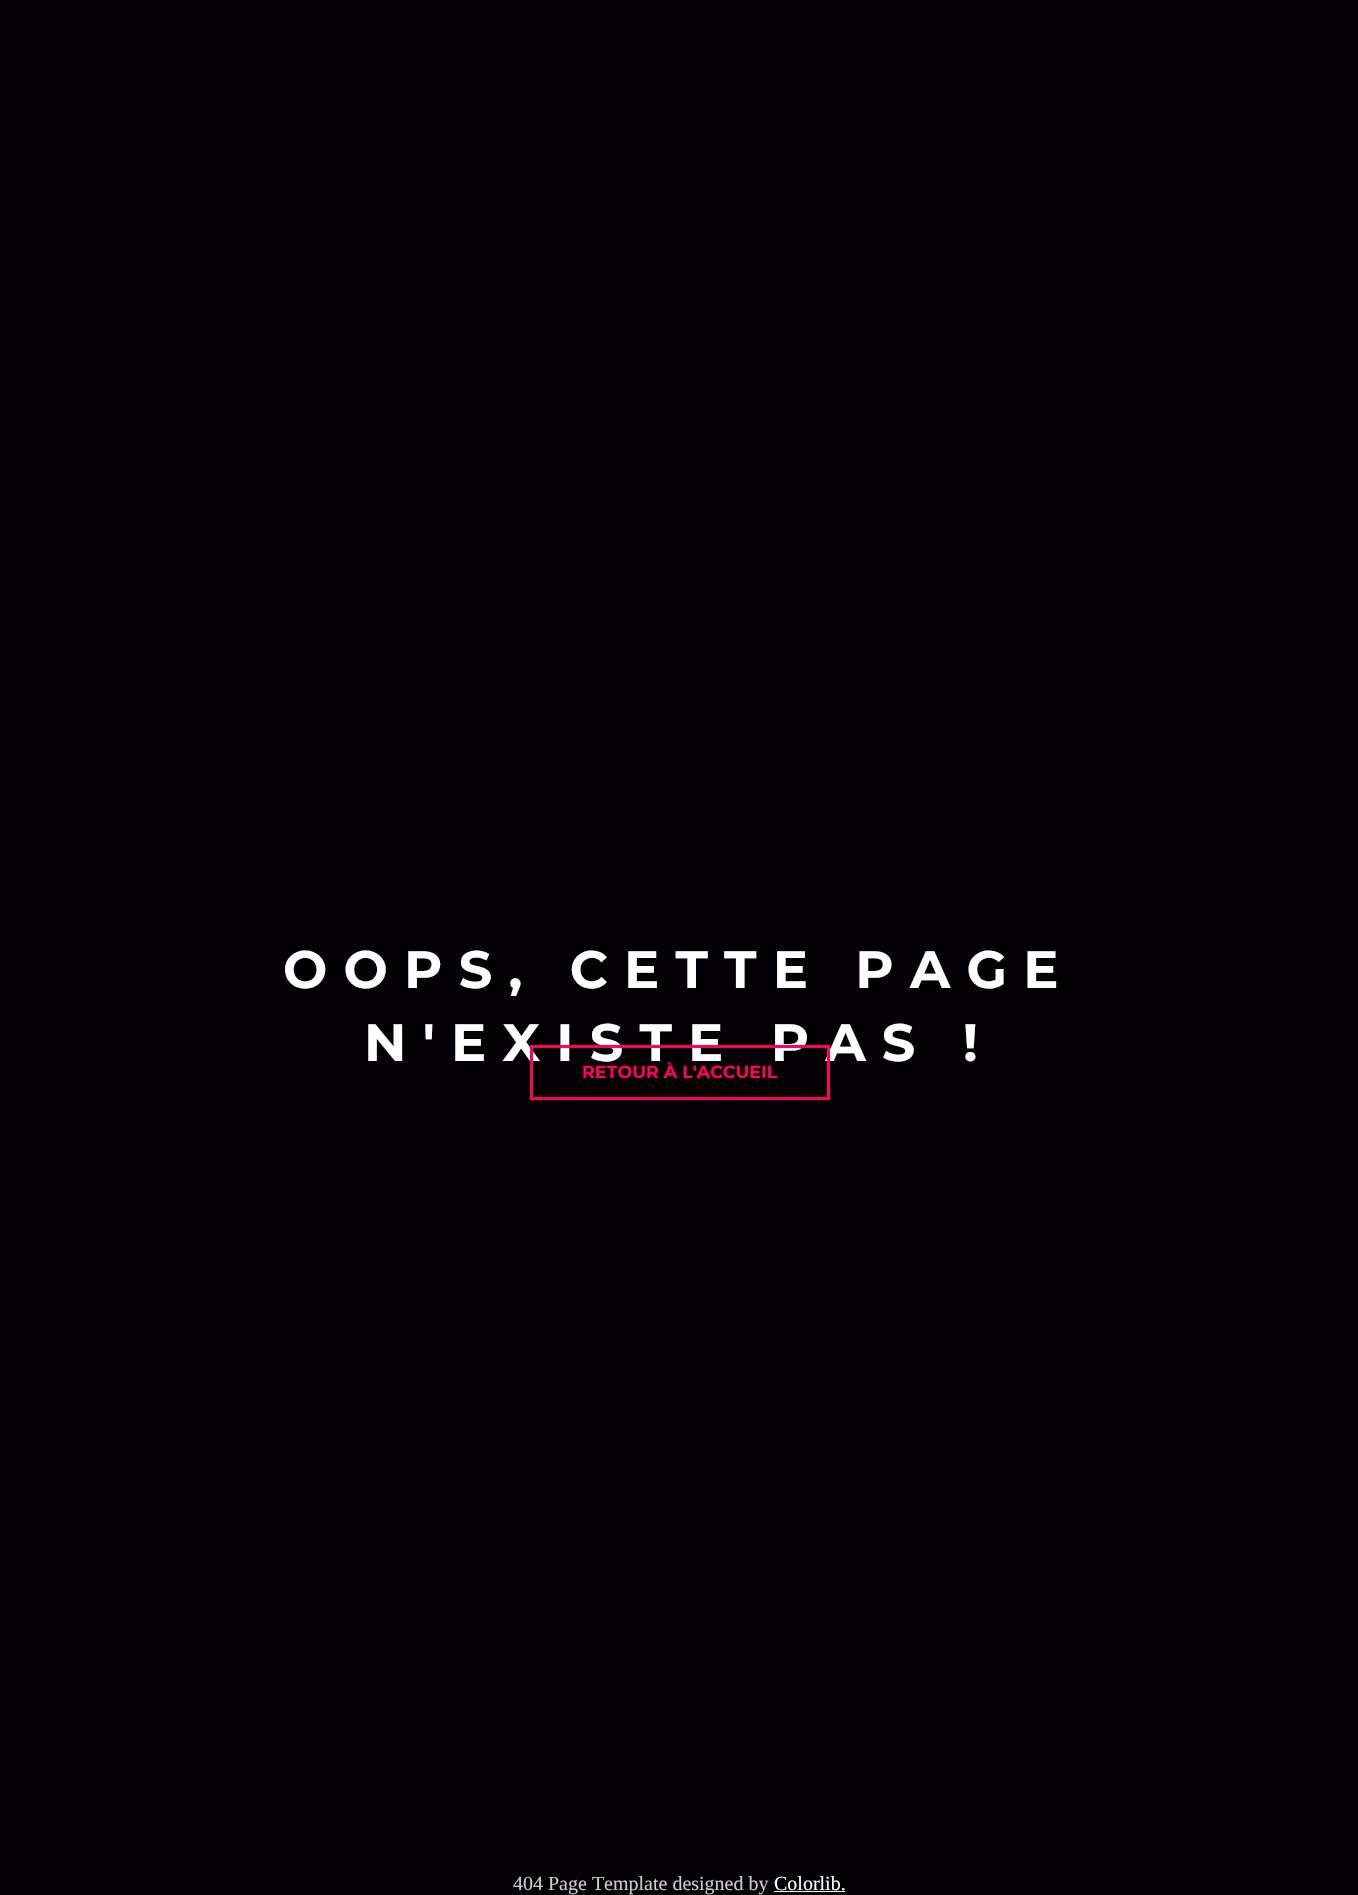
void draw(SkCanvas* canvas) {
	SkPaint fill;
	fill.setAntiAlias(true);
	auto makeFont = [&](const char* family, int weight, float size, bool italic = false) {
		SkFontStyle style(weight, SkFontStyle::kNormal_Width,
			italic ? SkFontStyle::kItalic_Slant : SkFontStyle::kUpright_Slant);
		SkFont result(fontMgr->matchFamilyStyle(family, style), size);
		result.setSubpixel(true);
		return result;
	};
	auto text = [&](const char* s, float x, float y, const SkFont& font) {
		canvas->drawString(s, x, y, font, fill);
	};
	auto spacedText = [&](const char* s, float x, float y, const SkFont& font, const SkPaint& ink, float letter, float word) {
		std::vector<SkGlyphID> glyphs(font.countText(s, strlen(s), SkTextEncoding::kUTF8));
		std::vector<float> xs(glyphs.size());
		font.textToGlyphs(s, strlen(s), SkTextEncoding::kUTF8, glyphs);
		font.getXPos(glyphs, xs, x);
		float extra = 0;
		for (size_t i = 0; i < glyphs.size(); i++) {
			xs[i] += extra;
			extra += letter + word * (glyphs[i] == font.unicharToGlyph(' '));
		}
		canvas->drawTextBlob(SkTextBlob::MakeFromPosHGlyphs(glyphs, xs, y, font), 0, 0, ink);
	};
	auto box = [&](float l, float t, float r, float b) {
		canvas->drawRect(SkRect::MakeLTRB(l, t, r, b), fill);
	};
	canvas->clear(0xFF030005);
	fill.setColor(0xFFFFFFFF);
	box(774, 1891, 845, 1892);
	auto font1 = makeFont("Montserrat", 700, 52.5f);
	spacedText("OOPS, CETTE PAGE", 283, 988, font1, fill, 16.25f, 0);
	spacedText("N'EXISTE PAS !", 364, 1061, font1, fill, 16.25f, 0);
	fill.setStyle(SkPaint::kStroke_Style);
	fill.setStrokeWidth(3);
	fill.setColor(0xFFFF005A);
	canvas->drawRect(SkRect::MakeLTRB(531.5f, 1046.5f, 828.5f, 1098.5f), fill);
	auto font2 = makeFont("Montserrat", 700, 17.5f);
	fill.setStyle(SkPaint::kFill_Style);
	text("RETOUR À L'ACCUEIL", 582, 1078, font2);
	auto font3 = makeFont("Liberation Serif", 400, 20);
	fill.setColor(0xFFCDCCCD);
	text("404 Page Template designed by", 513, 1890, font3);
	fill.setColor(0xFFFFFFFF);
	text("Colorlib.", 774, 1890, font3);
}
